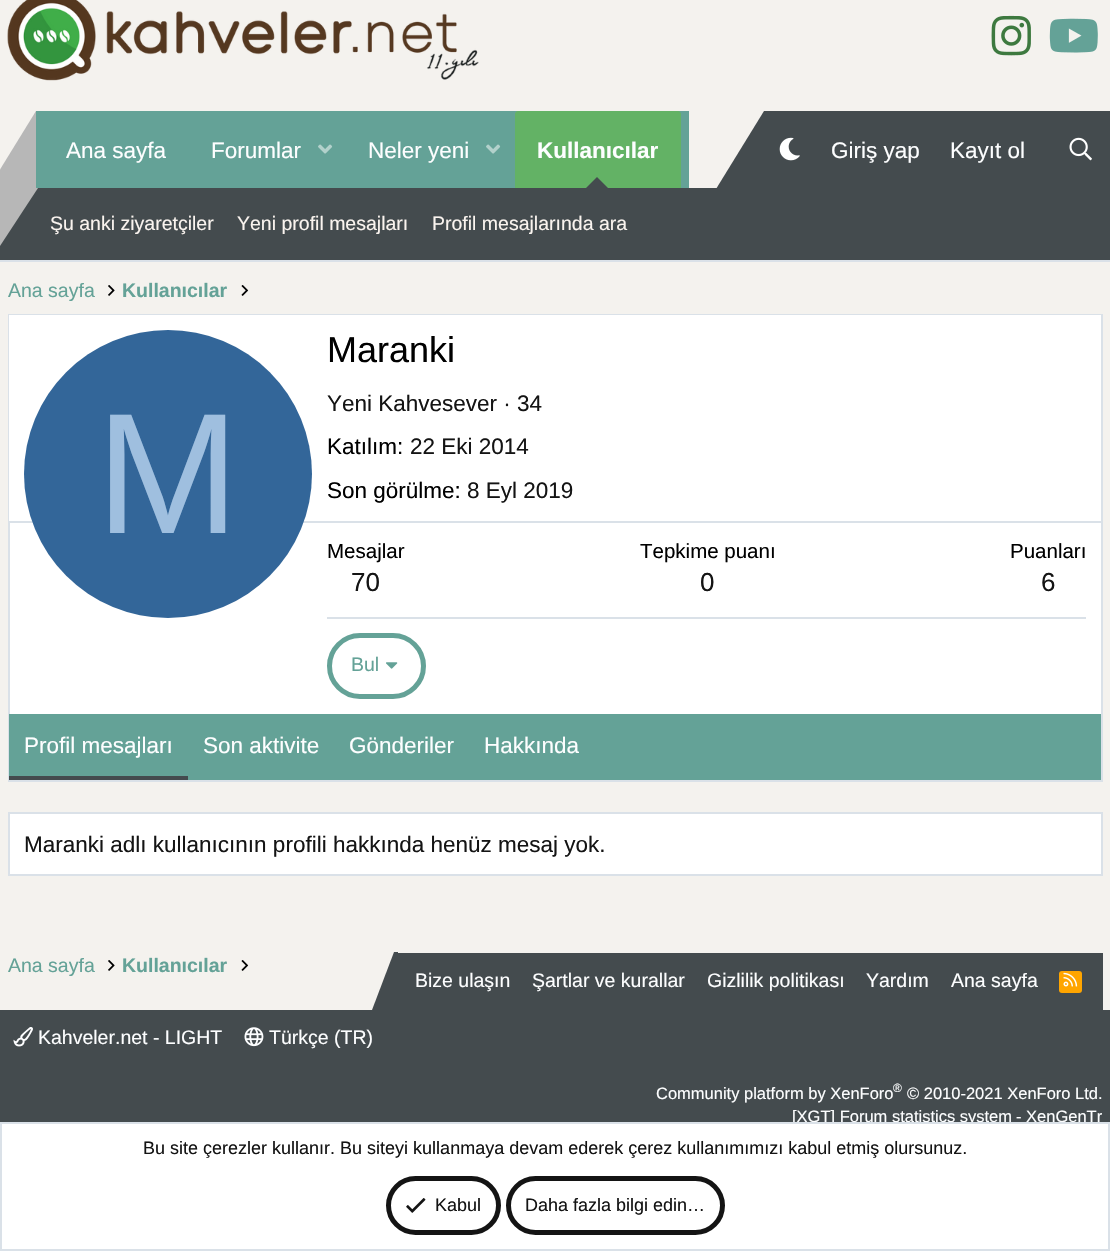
void draw(SkCanvas* canvas) {
	SkPaint fill;
	fill.setAntiAlias(true);
	auto makeFont = [&](const char* family, int weight, float size, bool italic = false) {
		SkFontStyle style(weight, SkFontStyle::kNormal_Width,
			italic ? SkFontStyle::kItalic_Slant : SkFontStyle::kUpright_Slant);
		SkFont result(fontMgr->matchFamilyStyle(family, style), size);
		result.setSubpixel(true);
		return result;
	};
	auto text = [&](const char* s, float x, float y, const SkFont& font) {
		canvas->drawString(s, x, y, font, fill);
	};
	auto box = [&](float l, float t, float r, float b) {
		canvas->drawRect(SkRect::MakeLTRB(l, t, r, b), fill);
	};
	auto roundBox = [&](float l, float t, float r, float b, float radius) {
		canvas->drawRoundRect(SkRect::MakeLTRB(l, t, r, b), radius, radius, fill);
	};
	auto picture = [&](const char* path, float l, float t, float r, float b) {
		auto image = SkImages::DeferredFromEncodedData(SkData::MakeFromFileName(path));
		canvas->drawImageRect(image, SkRect::MakeLTRB(l, t, r, b), SkSamplingOptions());
	};
	canvas->clear(0xFFF4F2EE);
	picture("image0.png", 7, 0, 479, 81);
	picture("image1.png", 991, 15, 1031, 56);
	picture("image2.png", 1049, 18, 1098, 53);
	fill.setColor(0xFF444B4E);
	box(0, 188, 1110, 260);
	fill.setColor(0xFFB7B7B7);
	canvas->drawPath(SkPathBuilder().moveTo(0, 246).lineTo(0, 188).lineTo(38, 188).close().detach(), fill);
	canvas->drawPath(SkPathBuilder().moveTo(36, 189).lineTo(-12, 189).lineTo(36, 111).close().detach(), fill);
	fill.setColor(0xFF64A297);
	box(36, 111, 689, 188);
	picture("image3.png", 318, 144, 333, 154);
	picture("image3.png", 486, 144, 501, 154);
	fill.setColor(0xFF63B265);
	canvas->drawPath(SkPathBuilder().moveTo(518, 111).lineTo(678, 111).cubicTo(679.5f, 111, 681, 112.5f, 681, 114).lineTo(681, 188).lineTo(515, 188).lineTo(515, 114).cubicTo(515, 112.5f, 516.5f, 111, 518, 111).close().detach(), fill);
	canvas->save();
	canvas->clipRect(SkRect::MakeLTRB(36, 111, 689, 188));
	fill.setColor(0xFF444B4E);
	canvas->drawPath(SkPathBuilder().moveTo(609, 189).lineTo(585, 189).lineTo(597, 177).close().detach(), fill);
	canvas->restore();
	box(766, 111, 1110, 188);
	canvas->drawPath(SkPathBuilder().moveTo(766, 189).lineTo(716, 189).lineTo(764, 111).lineTo(766, 111).close().detach(), fill);
	picture("image4.png", 779, 137, 800, 161);
	picture("image5.png", 1069, 137, 1092, 161);
	fill.setColor(0xFFDAE1E8);
	box(0, 260, 1110, 262);
	picture("image6.png", 108, 285, 115, 296);
	picture("image7.png", 241, 285, 249, 296);
	fill.setColor(0xFFFFFFFF);
	box(10, 523, 1101, 714);
	fill.setStyle(SkPaint::kStroke_Style);
	fill.setStrokeWidth(2);
	fill.setColor(0xFFDAE1E8);
	canvas->drawRect(SkRect::MakeLTRB(9, 315, 1102, 781), fill);
	fill.setStyle(SkPaint::kFill_Style);
	fill.setColor(0xFFFFFFFF);
	box(9, 315, 1101, 521);
	fill.setColor(0xFFDAE1E8);
	box(9, 521, 1101, 523);
	fill.setColor(0xFF336699);
	canvas->drawCircle(168, 474, 144, fill);
	fill.setColor(0xFFDAE1E8);
	box(327, 617, 1086, 619);
	fill.setStyle(SkPaint::kStroke_Style);
	fill.setStrokeWidth(5);
	fill.setColor(0xFF64A297);
	canvas->drawRoundRect(SkRect::MakeLTRB(329.5f, 635.5f, 423.5f, 696.5f), 30.5f, 30.5f, fill);
	picture("image8.png", 386, 662, 398, 669);
	fill.setStyle(SkPaint::kFill_Style);
	box(9, 714, 1101, 780);
	fill.setColor(0xFF444B4E);
	box(9, 776, 188, 780);
	fill.setColor(0xFFFFFFFF);
	canvas->drawRect(SkRect::MakeLTRB(9, 813, 1102, 875), fill);
	fill.setStyle(SkPaint::kStroke_Style);
	fill.setStrokeWidth(2);
	fill.setColor(0xFFDAE1E8);
	canvas->drawRect(SkRect::MakeLTRB(9, 813, 1102, 875), fill);
	picture("image6.png", 108, 960, 115, 971);
	picture("image7.png", 241, 960, 249, 971);
	fill.setStyle(SkPaint::kFill_Style);
	fill.setColor(0xFF444B4E);
	box(0, 1010, 1110, 1122);
	box(398, 953, 1103, 1010);
	canvas->drawPath(SkPathBuilder().moveTo(398, 1010).lineTo(372, 1010).lineTo(394, 952).lineTo(398, 952).close().detach(), fill);
	fill.setColor(0xFFFFA500);
	roundBox(1059, 971, 1082, 993, 3);
	picture("image9.png", 1063, 972, 1078, 987);
	picture("image10.png", 13, 1027, 33, 1047);
	picture("image11.png", 244, 1027, 264, 1047);
	auto font1 = makeFont("Liberation Sans", 400, 22.5f);
	fill.setColor(0xFFFDFEFF);
	text("Ana sayfa", 66, 158, font1);
	text("Forumlar", 211, 158, font1);
	text("Neler yeni", 368, 158, font1);
	auto font2 = makeFont("Liberation Sans", 700, 22.5f);
	text("Kullanıcılar", 537, 158, font2);
	text("Giriş yap", 831, 158, font1);
	text("Kayıt ol", 950, 158, font1);
	auto font3 = makeFont("Liberation Sans", 400, 19.5f);
	fill.setColor(0xFFFAF4EF);
	text("Şu anki ziyaretçiler", 50, 230, font3);
	text("Yeni profil mesajları", 237, 230, font3);
	text("Profil mesajlarında ara", 432, 230, font3);
	fill.setColor(0xFF64A297);
	text("Ana sayfa", 8, 297, font3);
	auto font4 = makeFont("Liberation Sans", 700, 19.5f);
	text("Kullanıcılar", 122, 297, font4);
	auto font5 = makeFont("Liberation Sans", 400, 172);
	fill.setColor(0xFF9FBFDF);
	text("M", 96, 533, font5);
	auto font6 = makeFont("Liberation Sans", 400, 36);
	fill.setColor(0xFF000000);
	text("Maranki", 327, 362, font6);
	fill.setColor(0xFF141414);
	text("Yeni Kahvesever · 34", 327, 411, font1);
	fill.setColor(0xFF000000);
	text("Katılım:", 327, 454, font1);
	fill.setColor(0xFF141414);
	text("22 Eki 2014", 410, 454, font1);
	fill.setColor(0xFF000000);
	text("Son görülme:", 327, 498, font1);
	fill.setColor(0xFF141414);
	text("8 Eyl 2019", 467, 498, font1);
	auto font7 = makeFont("Liberation Sans", 400, 20.5f);
	fill.setColor(0xFF000000);
	text("Mesajlar", 327, 558, font7);
	auto font8 = makeFont("Liberation Sans", 400, 26);
	fill.setColor(0xFF141414);
	text("70", 351, 591, font8);
	fill.setColor(0xFF000000);
	text("Tepkime puanı", 640, 558, font7);
	fill.setColor(0xFF141414);
	text("0", 700, 591, font8);
	fill.setColor(0xFF000000);
	text("Puanları", 1010, 558, font7);
	fill.setColor(0xFF141414);
	text("6", 1041, 591, font8);
	fill.setColor(0xFF64A297);
	text("Bul", 351, 671, font3);
	fill.setColor(0xFFFDFEFF);
	text("Profil mesajları", 24, 753, font1);
	text("Son aktivite", 203, 753, font1);
	text("Gönderiler", 349, 753, font1);
	text("Hakkında", 484, 753, font1);
	fill.setColor(0xFF141414);
	text("Maranki adlı kullanıcının profili hakkında henüz mesaj yok.", 24, 852, font1);
	fill.setColor(0xFF64A297);
	text("Ana sayfa", 8, 972, font3);
	text("Kullanıcılar", 122, 972, font4);
	fill.setColor(0xFFFDFEFF);
	text("Bize ulaşın", 415, 987, font3);
	text("Şartlar ve kurallar", 532, 987, font3);
	text("Gizlilik politikası", 707, 987, font3);
	text("Yardım", 866, 987, font3);
	text("Ana sayfa", 951, 987, font3);
	text("Kahveler.net - LIGHT", 38, 1044, font3);
	text("Türkçe (TR)", 269, 1044, font3);
	auto font9 = makeFont("Liberation Sans", 400, 16.5f);
	text("Community platform by XenForo", 656, 1099, font9);
	auto font10 = makeFont("Liberation Sans", 400, 12);
	text("®", 893, 1092, font10);
	text("© 2010-2021 XenForo Ltd.", 907, 1099, font9);
	text("[XGT] Forum statistics system", 792, 1122, font9);
	text("- XenGenTr", 1016, 1122, font9);
	fill.setColor(0xFFFFFFFF);
	canvas->drawRect(SkRect::MakeLTRB(1, 1123, 1109, 1250), fill);
	fill.setStyle(SkPaint::kStroke_Style);
	fill.setColor(0xFFDAE1E8);
	canvas->drawRect(SkRect::MakeLTRB(1, 1123, 1109, 1250), fill);
	auto font11 = makeFont("Liberation Sans", 400, 18);
	fill.setStyle(SkPaint::kFill_Style);
	fill.setColor(0xFF141414);
	text("Bu site çerezler kullanır. Bu siteyi kullanmaya devam ederek çerez kullanımımızı kabul etmiş olursunuz.", 143, 1154, font11);
	fill.setStyle(SkPaint::kStroke_Style);
	fill.setStrokeWidth(5);
	canvas->drawRoundRect(SkRect::MakeLTRB(388.5f, 1178.5f, 498.5f, 1232.5f), 27, 27, fill);
	picture("image12.png", 406, 1198, 426, 1213);
	fill.setStyle(SkPaint::kFill_Style);
	text("Kabul", 435, 1211, font11);
	fill.setStyle(SkPaint::kStroke_Style);
	canvas->drawRoundRect(SkRect::MakeLTRB(508.5f, 1178.5f, 722.5f, 1232.5f), 27, 27, fill);
	fill.setStyle(SkPaint::kFill_Style);
	text("Daha fazla bilgi edin…", 525, 1211, font11);
}
